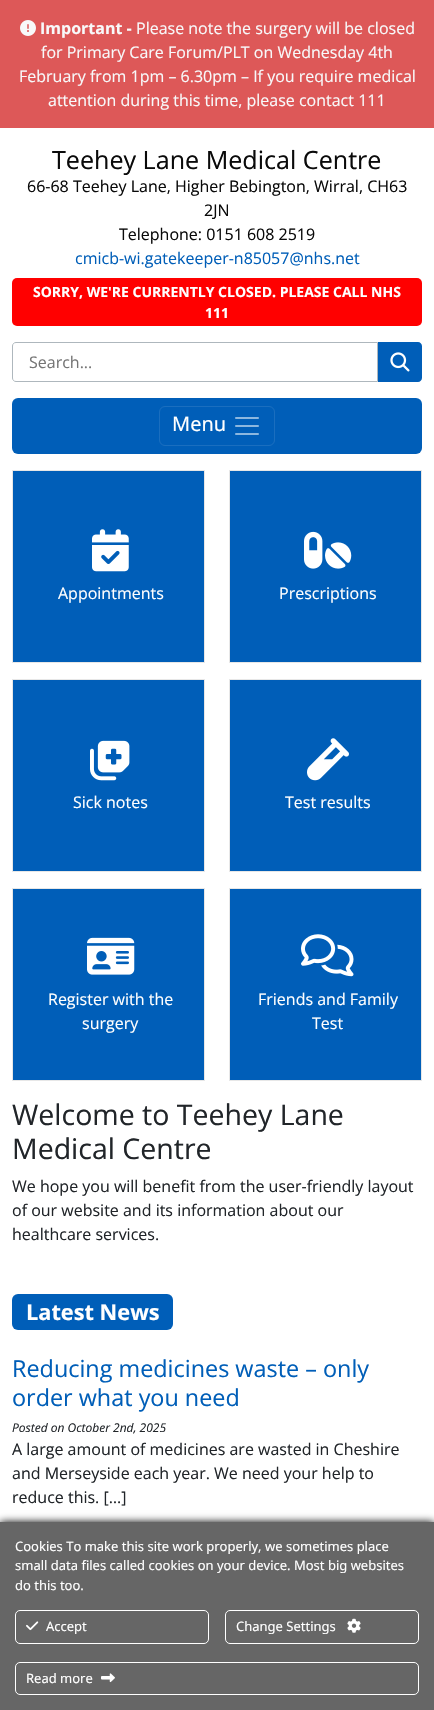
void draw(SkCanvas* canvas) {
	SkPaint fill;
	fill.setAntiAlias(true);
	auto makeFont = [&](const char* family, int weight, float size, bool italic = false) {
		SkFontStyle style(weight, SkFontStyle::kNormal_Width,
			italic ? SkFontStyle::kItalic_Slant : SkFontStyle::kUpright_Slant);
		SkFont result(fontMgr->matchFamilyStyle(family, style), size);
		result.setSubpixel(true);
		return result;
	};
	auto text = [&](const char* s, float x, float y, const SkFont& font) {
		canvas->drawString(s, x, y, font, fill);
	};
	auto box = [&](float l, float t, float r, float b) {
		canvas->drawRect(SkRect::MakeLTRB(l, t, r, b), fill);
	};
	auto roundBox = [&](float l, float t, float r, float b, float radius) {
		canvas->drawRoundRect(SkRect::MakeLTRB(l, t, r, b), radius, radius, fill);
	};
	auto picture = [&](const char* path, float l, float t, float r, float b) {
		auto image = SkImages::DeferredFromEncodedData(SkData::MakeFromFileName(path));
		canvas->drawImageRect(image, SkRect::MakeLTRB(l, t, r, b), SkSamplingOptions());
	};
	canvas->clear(0xFFFFFFFF);
	fill.setColor(0xFFDD5858);
	box(0, 0, 434, 128);
	picture("image0.png", 20, 20, 36, 36);
	fill.setColor(0xFFFF0000);
	roundBox(12, 278, 422, 326, 5);
	fill.setStyle(SkPaint::kStroke_Style);
	fill.setStrokeWidth(1);
	fill.setColor(0xFFAEB7BD);
	canvas->drawPath(SkPathBuilder().moveTo(16, 342.5f).lineTo(377.5f, 342.5f).lineTo(377.5f, 381.5f).lineTo(16, 381.5f).cubicTo(14, 381.5f, 12.5f, 380, 12.5f, 378).lineTo(12.5f, 346).cubicTo(12.5f, 344, 14, 342.5f, 16, 342.5f).close().detach(), fill);
	fill.setStyle(SkPaint::kFill_Style);
	fill.setColor(0xFF005EB8);
	canvas->drawPath(SkPathBuilder().moveTo(378, 342).lineTo(418, 342).cubicTo(420, 342, 422, 344, 422, 346).lineTo(422, 378).cubicTo(422, 380, 420, 382, 418, 382).lineTo(378, 382).close().detach(), fill);
	picture("image1.png", 390, 352, 410, 372);
	roundBox(12, 398, 422, 454, 6);
	fill.setStyle(SkPaint::kStroke_Style);
	fill.setColor(0xFF1A6EBF);
	canvas->drawRoundRect(SkRect::MakeLTRB(159.5f, 406.5f, 274.5f, 445.5f), 5.5f, 5.5f, fill);
	picture("image2.png", 235, 417, 259, 435);
	fill.setStyle(SkPaint::kFill_Style);
	fill.setColor(0xFF005EB8);
	canvas->drawRect(SkRect::MakeLTRB(12.5f, 470.5f, 204.5f, 662.5f), fill);
	fill.setStyle(SkPaint::kStroke_Style);
	fill.setColor(0xFFE7E7E7);
	canvas->drawRect(SkRect::MakeLTRB(12.5f, 470.5f, 204.5f, 662.5f), fill);
	picture("image3.png", 92, 529, 129, 572);
	fill.setStyle(SkPaint::kFill_Style);
	fill.setColor(0xFF005EB8);
	canvas->drawRect(SkRect::MakeLTRB(229.5f, 470.5f, 421.5f, 662.5f), fill);
	fill.setStyle(SkPaint::kStroke_Style);
	fill.setColor(0xFFE7E7E7);
	canvas->drawRect(SkRect::MakeLTRB(229.5f, 470.5f, 421.5f, 662.5f), fill);
	picture("image4.png", 304, 531, 352, 569);
	fill.setStyle(SkPaint::kFill_Style);
	fill.setColor(0xFF005EB8);
	canvas->drawRect(SkRect::MakeLTRB(12.5f, 679.5f, 204.5f, 871.5f), fill);
	fill.setStyle(SkPaint::kStroke_Style);
	fill.setColor(0xFFE7E7E7);
	canvas->drawRect(SkRect::MakeLTRB(12.5f, 679.5f, 204.5f, 871.5f), fill);
	picture("image5.png", 90, 740, 130, 781);
	fill.setStyle(SkPaint::kFill_Style);
	fill.setColor(0xFF005EB8);
	canvas->drawRect(SkRect::MakeLTRB(229.5f, 679.5f, 421.5f, 871.5f), fill);
	fill.setStyle(SkPaint::kStroke_Style);
	fill.setColor(0xFFE7E7E7);
	canvas->drawRect(SkRect::MakeLTRB(229.5f, 679.5f, 421.5f, 871.5f), fill);
	picture("image6.png", 307, 738, 349, 781);
	fill.setStyle(SkPaint::kFill_Style);
	fill.setColor(0xFF005EB8);
	canvas->drawRect(SkRect::MakeLTRB(12.5f, 888.5f, 204.5f, 1080.5f), fill);
	fill.setStyle(SkPaint::kStroke_Style);
	fill.setColor(0xFFE7E7E7);
	canvas->drawRect(SkRect::MakeLTRB(12.5f, 888.5f, 204.5f, 1080.5f), fill);
	picture("image7.png", 87, 937, 135, 975);
	fill.setStyle(SkPaint::kFill_Style);
	fill.setColor(0xFF005EB8);
	canvas->drawRect(SkRect::MakeLTRB(229.5f, 888.5f, 421.5f, 1080.5f), fill);
	fill.setStyle(SkPaint::kStroke_Style);
	fill.setColor(0xFFE7E7E7);
	canvas->drawRect(SkRect::MakeLTRB(229.5f, 888.5f, 421.5f, 1080.5f), fill);
	picture("image8.png", 301, 934, 354, 977);
	fill.setStyle(SkPaint::kFill_Style);
	fill.setColor(0xFF005EB8);
	roundBox(12, 1294, 173, 1330, 6);
	fill.setColor(0xFF000000);
	fill.setMaskFilter(SkMaskFilter::MakeBlur(kNormal_SkBlurStyle, 4));
	canvas->drawRect(SkRect::MakeLTRB(0, 1522, 434, 1710), fill);
	fill.setMaskFilter(nullptr);
	fill.setColor(0xFF666666);
	box(0, 1522, 434, 1710);
	fill.setStyle(SkPaint::kStroke_Style);
	fill.setColor(0xFFFFFFFF);
	canvas->drawRoundRect(SkRect::MakeLTRB(15.5f, 1610.5f, 208.5f, 1643.5f), 4.5f, 4.5f, fill);
	picture("image9.png", 26, 1621, 39, 1631);
	canvas->drawRoundRect(SkRect::MakeLTRB(225.5f, 1610.5f, 418.5f, 1643.5f), 4.5f, 4.5f, fill);
	picture("image10.png", 347, 1618, 361, 1633);
	canvas->drawRoundRect(SkRect::MakeLTRB(15.5f, 1662.5f, 418.5f, 1694.5f), 4.5f, 4.5f, fill);
	picture("image11.png", 101, 1673, 115, 1683);
	auto font1 = makeFont("Open Sans", 700, 16);
	fill.setStyle(SkPaint::kFill_Style);
	fill.setColor(0xFFF8F9FA);
	text("Important -", 40, 34, font1);
	auto font2 = makeFont("Open Sans", 400, 16);
	text("Please note the surgery will be closed", 136, 34, font2);
	text("for Primary Care Forum/PLT on Wednesday 4th", 41, 58, font2);
	text("February from 1pm – 6.30pm – If you require medical", 19, 82, font2);
	text("attention during this time, please contact 111", 48, 106, font2);
	auto font3 = makeFont("Open Sans", 400, 25.1f);
	fill.setColor(0xFF0A0A0A);
	text("Teehey Lane Medical Centre", 52, 169, font3);
	text("66-68 Teehey Lane, Higher Bebington, Wirral, CH63", 27, 192, font2);
	text("2JN", 204, 216, font2);
	text("Telephone: 0151 608 2519", 119, 240, font2);
	fill.setColor(0xFF005EB8);
	text("cmicb-wi.gatekeeper-n85057@nhs.net", 75, 264, font2);
	auto font4 = makeFont("Open Sans", 700, 14);
	fill.setColor(0xFFFFFFFF);
	text("SORRY, WE'RE CURRENTLY CLOSED. PLEASE CALL NHS", 33, 297, font4);
	text("111", 205, 318, font4);
	fill.setColor(0xFF757575);
	text("Search...", 29, 368, font2);
	auto font5 = makeFont("Noto Sans", 400, 20);
	fill.setColor(0xFFFFFFFF);
	text("Menu", 172, 431, font5);
	text("Appointments", 58, 599, font2);
	text("Prescriptions", 279, 599, font2);
	text("Sick notes", 73, 808, font2);
	text("Test results", 285, 808, font2);
	text("Register with the", 48, 1005, font2);
	text("surgery", 82, 1029, font2);
	text("Friends and Family", 258, 1005, font2);
	text("Test", 312, 1029, font2);
	auto font6 = makeFont("Open Sans", 400, 28.5f);
	fill.setColor(0xFF212529);
	text("Welcome to Teehey Lane", 12, 1125, font6);
	text("Medical Centre", 12, 1159, font6);
	text("We hope you will benefit from the user-friendly layout", 12, 1192, font2);
	text("of our website and its information about our", 12, 1216, font2);
	text("healthcare services.", 12, 1240, font2);
	auto font7 = makeFont("Open Sans", 700, 21.75f);
	fill.setColor(0xFFFFFFFF);
	text("Latest News", 26, 1320, font7);
	auto font8 = makeFont("Open Sans", 400, 23.4f);
	fill.setColor(0xFF005EB8);
	text("Reducing medicines waste – only", 12, 1377, font8);
	text("order what you need", 12, 1406, font8);
	auto font9 = makeFont("Open Sans", 400, 12, true);
	fill.setColor(0xFF212529);
	text("Posted on October 2nd, 2025", 12, 1432, font9);
	text("A large amount of medicines are wasted in Cheshire", 12, 1455, font2);
	text("and Merseyside each year. We need your help to", 12, 1479, font2);
	text("reduce this. […]", 12, 1503, font2);
	auto font10 = makeFont("Noto Sans", 400, 13);
	fill.setColor(0xFFFFFFFF);
	text("Cookies To make this site work properly, we sometimes place", 15, 1551, font10);
	text("small data files called cookies on your device. Most big websites", 15, 1570, font10);
	text("do this too.", 15, 1590, font10);
	text("Accept", 46, 1631, font10);
	text("Change Settings", 236, 1631, font10);
	text("Read more", 26, 1683, font10);
}
